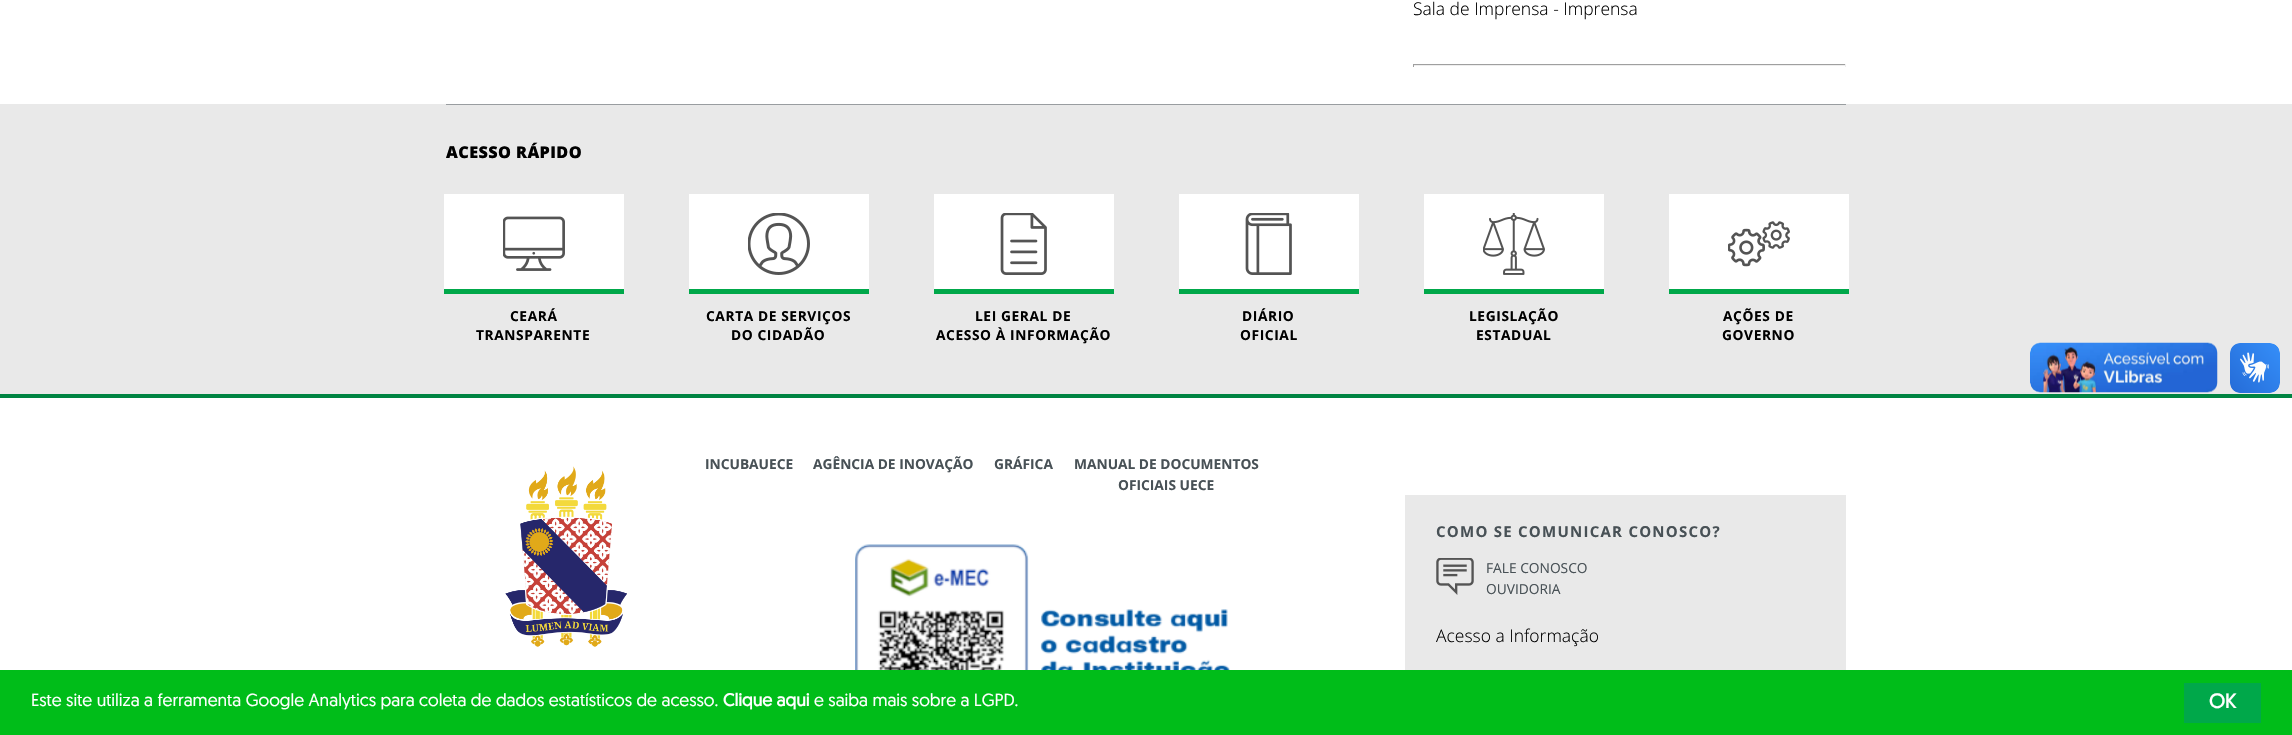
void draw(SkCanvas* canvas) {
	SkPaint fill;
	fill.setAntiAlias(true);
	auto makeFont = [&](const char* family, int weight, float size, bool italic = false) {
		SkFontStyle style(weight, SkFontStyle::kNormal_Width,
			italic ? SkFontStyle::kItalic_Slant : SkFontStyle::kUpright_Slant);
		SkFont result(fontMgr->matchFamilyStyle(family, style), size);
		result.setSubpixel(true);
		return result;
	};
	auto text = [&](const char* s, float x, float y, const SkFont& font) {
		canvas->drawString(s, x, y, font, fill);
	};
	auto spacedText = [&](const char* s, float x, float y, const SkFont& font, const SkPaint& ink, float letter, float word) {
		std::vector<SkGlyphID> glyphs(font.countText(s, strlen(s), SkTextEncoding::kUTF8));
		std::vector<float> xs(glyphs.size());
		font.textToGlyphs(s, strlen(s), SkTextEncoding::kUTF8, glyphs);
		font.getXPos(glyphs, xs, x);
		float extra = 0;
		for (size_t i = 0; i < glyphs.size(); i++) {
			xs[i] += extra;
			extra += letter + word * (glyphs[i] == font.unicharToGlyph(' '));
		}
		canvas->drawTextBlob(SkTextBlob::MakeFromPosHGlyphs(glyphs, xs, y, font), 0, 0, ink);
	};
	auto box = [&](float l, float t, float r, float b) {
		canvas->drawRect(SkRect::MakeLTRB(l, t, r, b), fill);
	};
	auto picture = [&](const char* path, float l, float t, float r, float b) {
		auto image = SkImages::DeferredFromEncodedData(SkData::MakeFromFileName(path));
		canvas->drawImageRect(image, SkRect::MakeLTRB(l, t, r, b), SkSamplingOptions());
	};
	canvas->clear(0xFFFFFFFF);
	fill.setColor(0xFF9F9F9F);
	box(1413, 64, 1846, 65);
	fill.setColor(0xFFEEEEEE);
	box(1845, 64, 1846, 67);
	box(1413, 65, 1846, 66);
	fill.setColor(0xFF9F9F9F);
	box(1413, 64, 1414, 67);
	fill.setColor(0xFFE9E9E9);
	box(0, 104, 2292, 394);
	fill.setColor(0xFF999DA0);
	box(446, 104, 1846, 105);
	fill.setColor(0xFFFFFFFF);
	box(444, 194, 624, 289);
	picture("image0.png", 503, 216, 565, 271);
	fill.setColor(0xFF00A84A);
	box(444, 289, 624, 294);
	fill.setColor(0xFFFFFFFF);
	box(689, 194, 869, 289);
	picture("image1.png", 748, 213, 810, 275);
	fill.setColor(0xFF00A84A);
	box(689, 289, 869, 294);
	fill.setColor(0xFFFFFFFF);
	box(934, 194, 1114, 289);
	picture("image2.png", 1000, 213, 1047, 275);
	fill.setColor(0xFF00A84A);
	box(934, 289, 1114, 294);
	fill.setColor(0xFFFFFFFF);
	box(1179, 194, 1359, 289);
	picture("image3.png", 1245, 213, 1292, 275);
	fill.setColor(0xFF00A84A);
	box(1179, 289, 1359, 294);
	fill.setColor(0xFFFFFFFF);
	box(1424, 194, 1604, 289);
	picture("image4.png", 1483, 213, 1545, 275);
	fill.setColor(0xFF00A84A);
	box(1424, 289, 1604, 294);
	fill.setColor(0xFFFFFFFF);
	box(1669, 194, 1849, 289);
	picture("image5.png", 1728, 221, 1790, 267);
	fill.setColor(0xFF00A84A);
	box(1669, 289, 1849, 294);
	picture("image6.png", 2030, 342, 2218, 393);
	picture("image7.png", 2230, 343, 2280, 393);
	fill.setColor(0xFF008442);
	box(0, 394, 2292, 398);
	picture("image8.png", 505, 466, 627, 647);
	fill.setColor(0xFFE9E9E9);
	box(1405, 495, 1846, 670);
	picture("image9.png", 1436, 558, 1474, 595);
	picture("image10.png", 855, 544, 1230, 670);
	fill.setColor(0xFF00BD19);
	box(0, 670, 2292, 735);
	fill.setColor(0xFF00A84A);
	box(2184, 683, 2261, 723);
	auto font1 = makeFont("Open Sans", 300, 17.5f);
	fill.setColor(0xFF000000);
	text("Sala de Imprensa - Imprensa", 1413, 15, font1);
	auto font2 = makeFont("Open Sans", 800, 16.25f);
	spacedText("ACESSO RÁPIDO", 446, 158, font2, fill, 0.4f, 0);
	auto font3 = makeFont("Open Sans", 700, 13.75f);
	spacedText("CEARÁ", 510, 321, font3, fill, 0.6f, 0);
	spacedText("TRANSPARENTE", 476, 340, font3, fill, 0.6f, 0);
	spacedText("CARTA DE SERVIÇOS", 706, 321, font3, fill, 0.6f, 0);
	spacedText("DO CIDADÃO", 731, 340, font3, fill, 0.6f, 0);
	spacedText("LEI GERAL DE", 975, 321, font3, fill, 0.6f, 0);
	spacedText("ACESSO À INFORMAÇÃO", 936, 340, font3, fill, 0.6f, 0);
	spacedText("DIÁRIO", 1242, 321, font3, fill, 0.6f, 0);
	spacedText("OFICIAL", 1240, 340, font3, fill, 0.6f, 0);
	spacedText("LEGISLAÇÃO", 1469, 321, font3, fill, 0.6f, 0);
	spacedText("ESTADUAL", 1476, 340, font3, fill, 0.6f, 0);
	spacedText("AÇÕES DE", 1723, 321, font3, fill, 0.6f, 0);
	spacedText("GOVERNO", 1722, 340, font3, fill, 0.6f, 0);
	fill.setColor(0xFF485156);
	text("INCUBAUECE", 705, 469, font3);
	text("AGÊNCIA DE INOVAÇÃO", 813, 469, font3);
	text("GRÁFICA", 994, 469, font3);
	text("MANUAL DE DOCUMENTOS", 1074, 469, font3);
	text("OFICIAIS UECE", 1118, 490, font3);
	auto font4 = makeFont("Open Sans", 700, 15);
	spacedText("COMO SE COMUNICAR CONOSCO?", 1436, 537, font4, fill, 1.25f, 0);
	auto font5 = makeFont("Open Sans", 400, 13.75f);
	text("FALE CONOSCO", 1486, 573, font5);
	text("OUVIDORIA", 1486, 594, font5);
	fill.setColor(0xFF000000);
	text("Acesso a Informação", 1436, 642, font1);
	auto font6 = makeFont("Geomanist", 400, 17.5f);
	fill.setColor(0xFFFFFFFF);
	text("Este site utiliza a ferramenta Google Analytics para coleta de dados estatísticos de acesso.", 31, 706, font6);
	auto font7 = makeFont("Geomanist", 700, 17.5f);
	text("Clique aqui", 723, 706, font7);
	text("e saiba mais sobre a LGPD.", 814, 706, font6);
	auto font8 = makeFont("Geomanist", 700, 20);
	text("OK", 2209, 708, font8);
}
